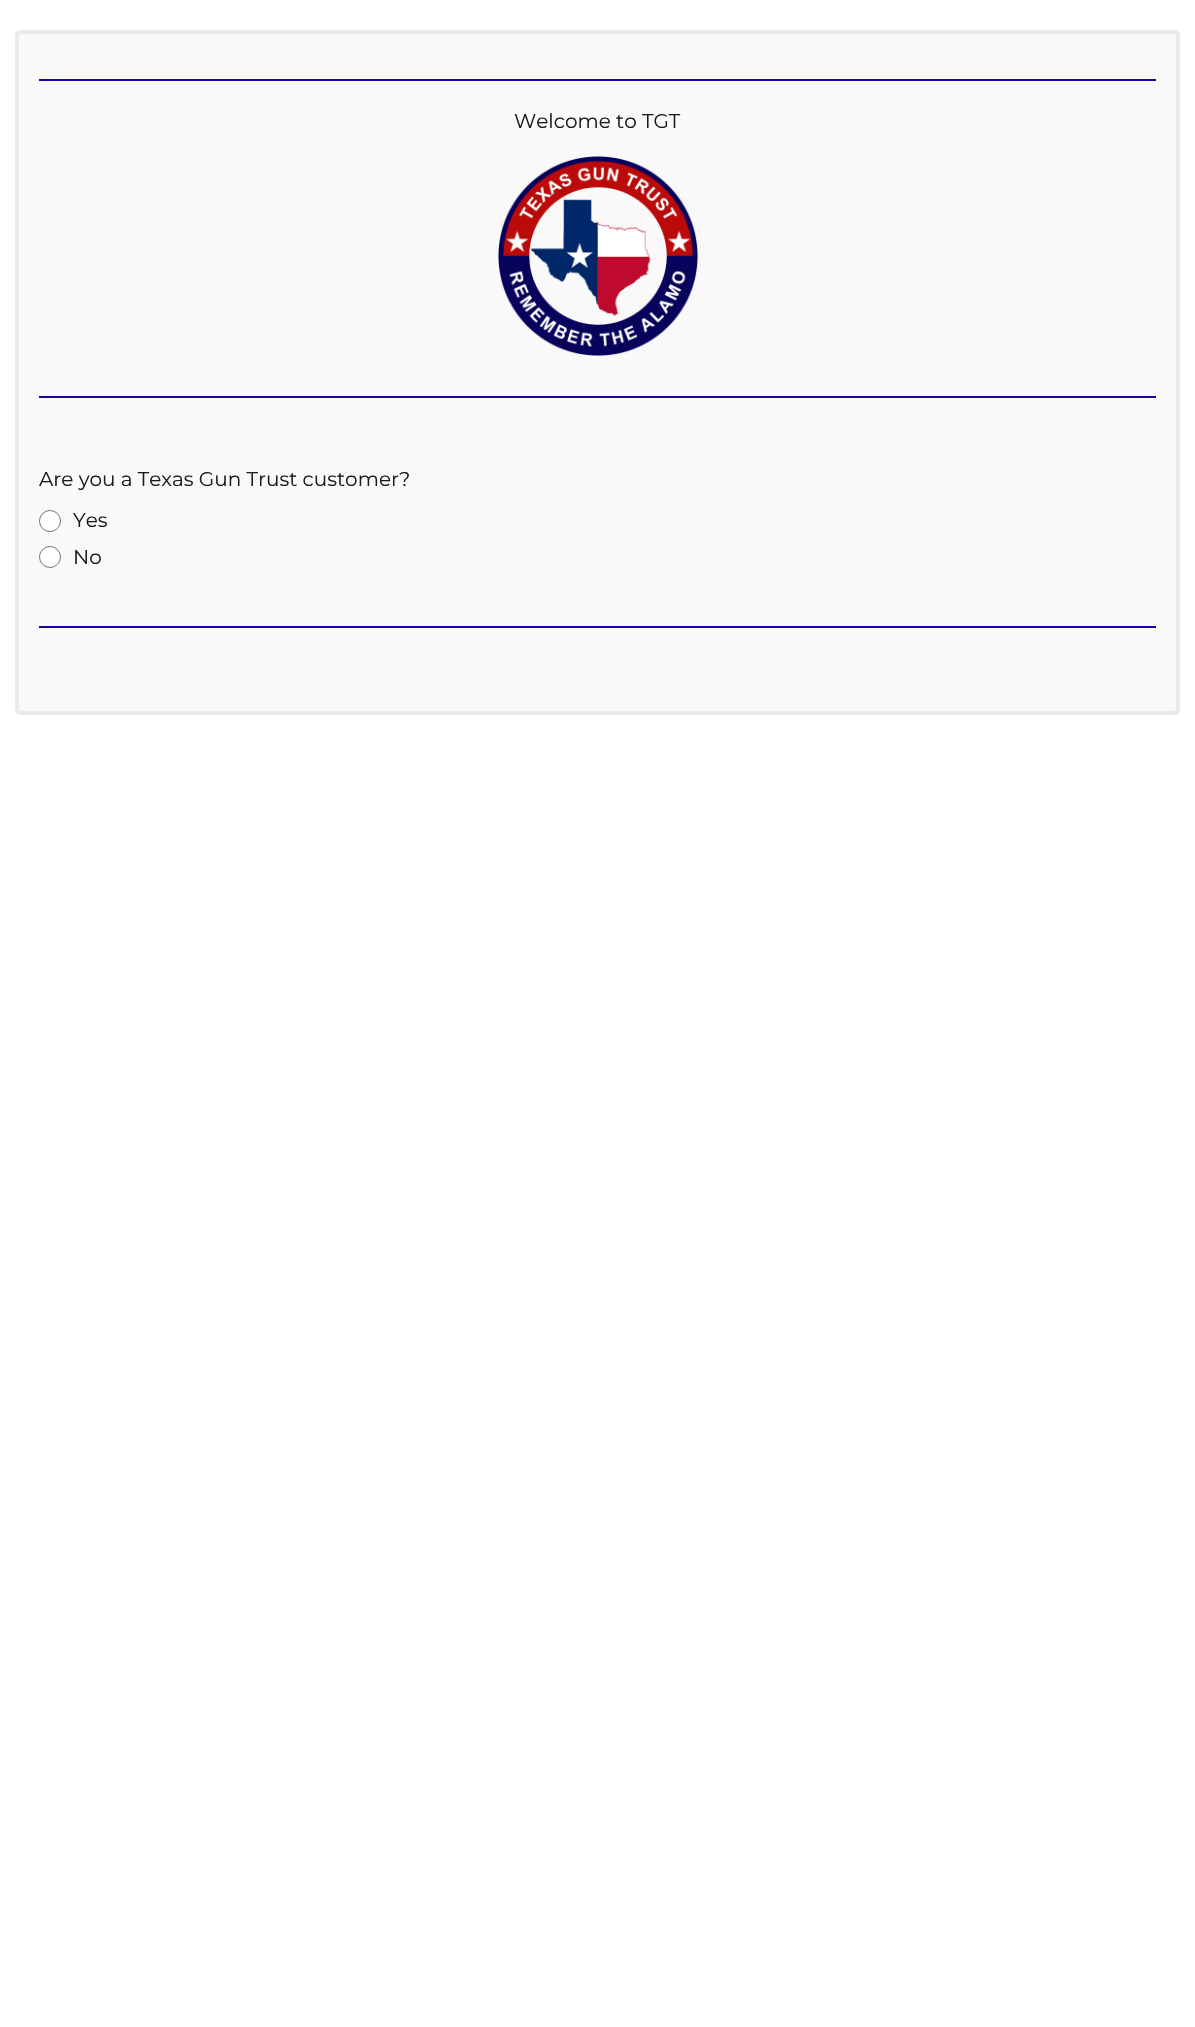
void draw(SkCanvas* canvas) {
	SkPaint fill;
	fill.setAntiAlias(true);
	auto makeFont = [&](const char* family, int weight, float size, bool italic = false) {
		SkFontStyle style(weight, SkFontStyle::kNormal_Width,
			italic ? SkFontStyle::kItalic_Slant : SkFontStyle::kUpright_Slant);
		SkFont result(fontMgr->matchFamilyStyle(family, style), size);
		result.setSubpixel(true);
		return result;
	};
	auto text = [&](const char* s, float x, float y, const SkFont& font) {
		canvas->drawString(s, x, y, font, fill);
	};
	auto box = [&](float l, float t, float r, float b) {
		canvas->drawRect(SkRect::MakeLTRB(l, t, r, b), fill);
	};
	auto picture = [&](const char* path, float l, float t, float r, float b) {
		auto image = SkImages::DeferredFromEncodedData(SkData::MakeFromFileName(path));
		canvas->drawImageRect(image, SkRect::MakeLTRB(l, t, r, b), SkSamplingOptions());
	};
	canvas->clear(0xFFFFFFFF);
	fill.setColor(0xFFF9F9F9);
	canvas->drawRoundRect(SkRect::MakeLTRB(17, 32, 1178, 713), 3, 3, fill);
	fill.setStyle(SkPaint::kStroke_Style);
	fill.setStrokeWidth(4);
	fill.setColor(0xFFEAEAEA);
	canvas->drawRoundRect(SkRect::MakeLTRB(17, 32, 1178, 713), 3, 3, fill);
	fill.setStyle(SkPaint::kFill_Style);
	fill.setColor(0xFF1D00A1);
	box(39, 79, 1156, 81);
	picture("image0.png", 498, 156, 698, 356);
	box(39, 396, 1156, 398);
	fill.setColor(0xFFFFFFFF);
	canvas->drawCircle(50, 521, 10.5f, fill);
	fill.setStyle(SkPaint::kStroke_Style);
	fill.setStrokeWidth(1);
	fill.setColor(0xFF767676);
	canvas->drawCircle(50, 521, 10.5f, fill);
	fill.setStyle(SkPaint::kFill_Style);
	fill.setColor(0xFFFFFFFF);
	canvas->drawCircle(50, 557, 10.5f, fill);
	fill.setStyle(SkPaint::kStroke_Style);
	fill.setColor(0xFF767676);
	canvas->drawCircle(50, 557, 10.5f, fill);
	fill.setStyle(SkPaint::kFill_Style);
	fill.setColor(0xFF1D00A1);
	box(39, 626, 1156, 628);
	auto font1 = makeFont("Montserrat", 400, 20);
	fill.setColor(0xFF1A1A1A);
	text("Welcome to TGT", 514, 128, font1);
	text("Are you a Texas Gun Trust customer?", 39, 486, font1);
	text("Yes", 73, 527, font1);
	text("No", 73, 564, font1);
}
